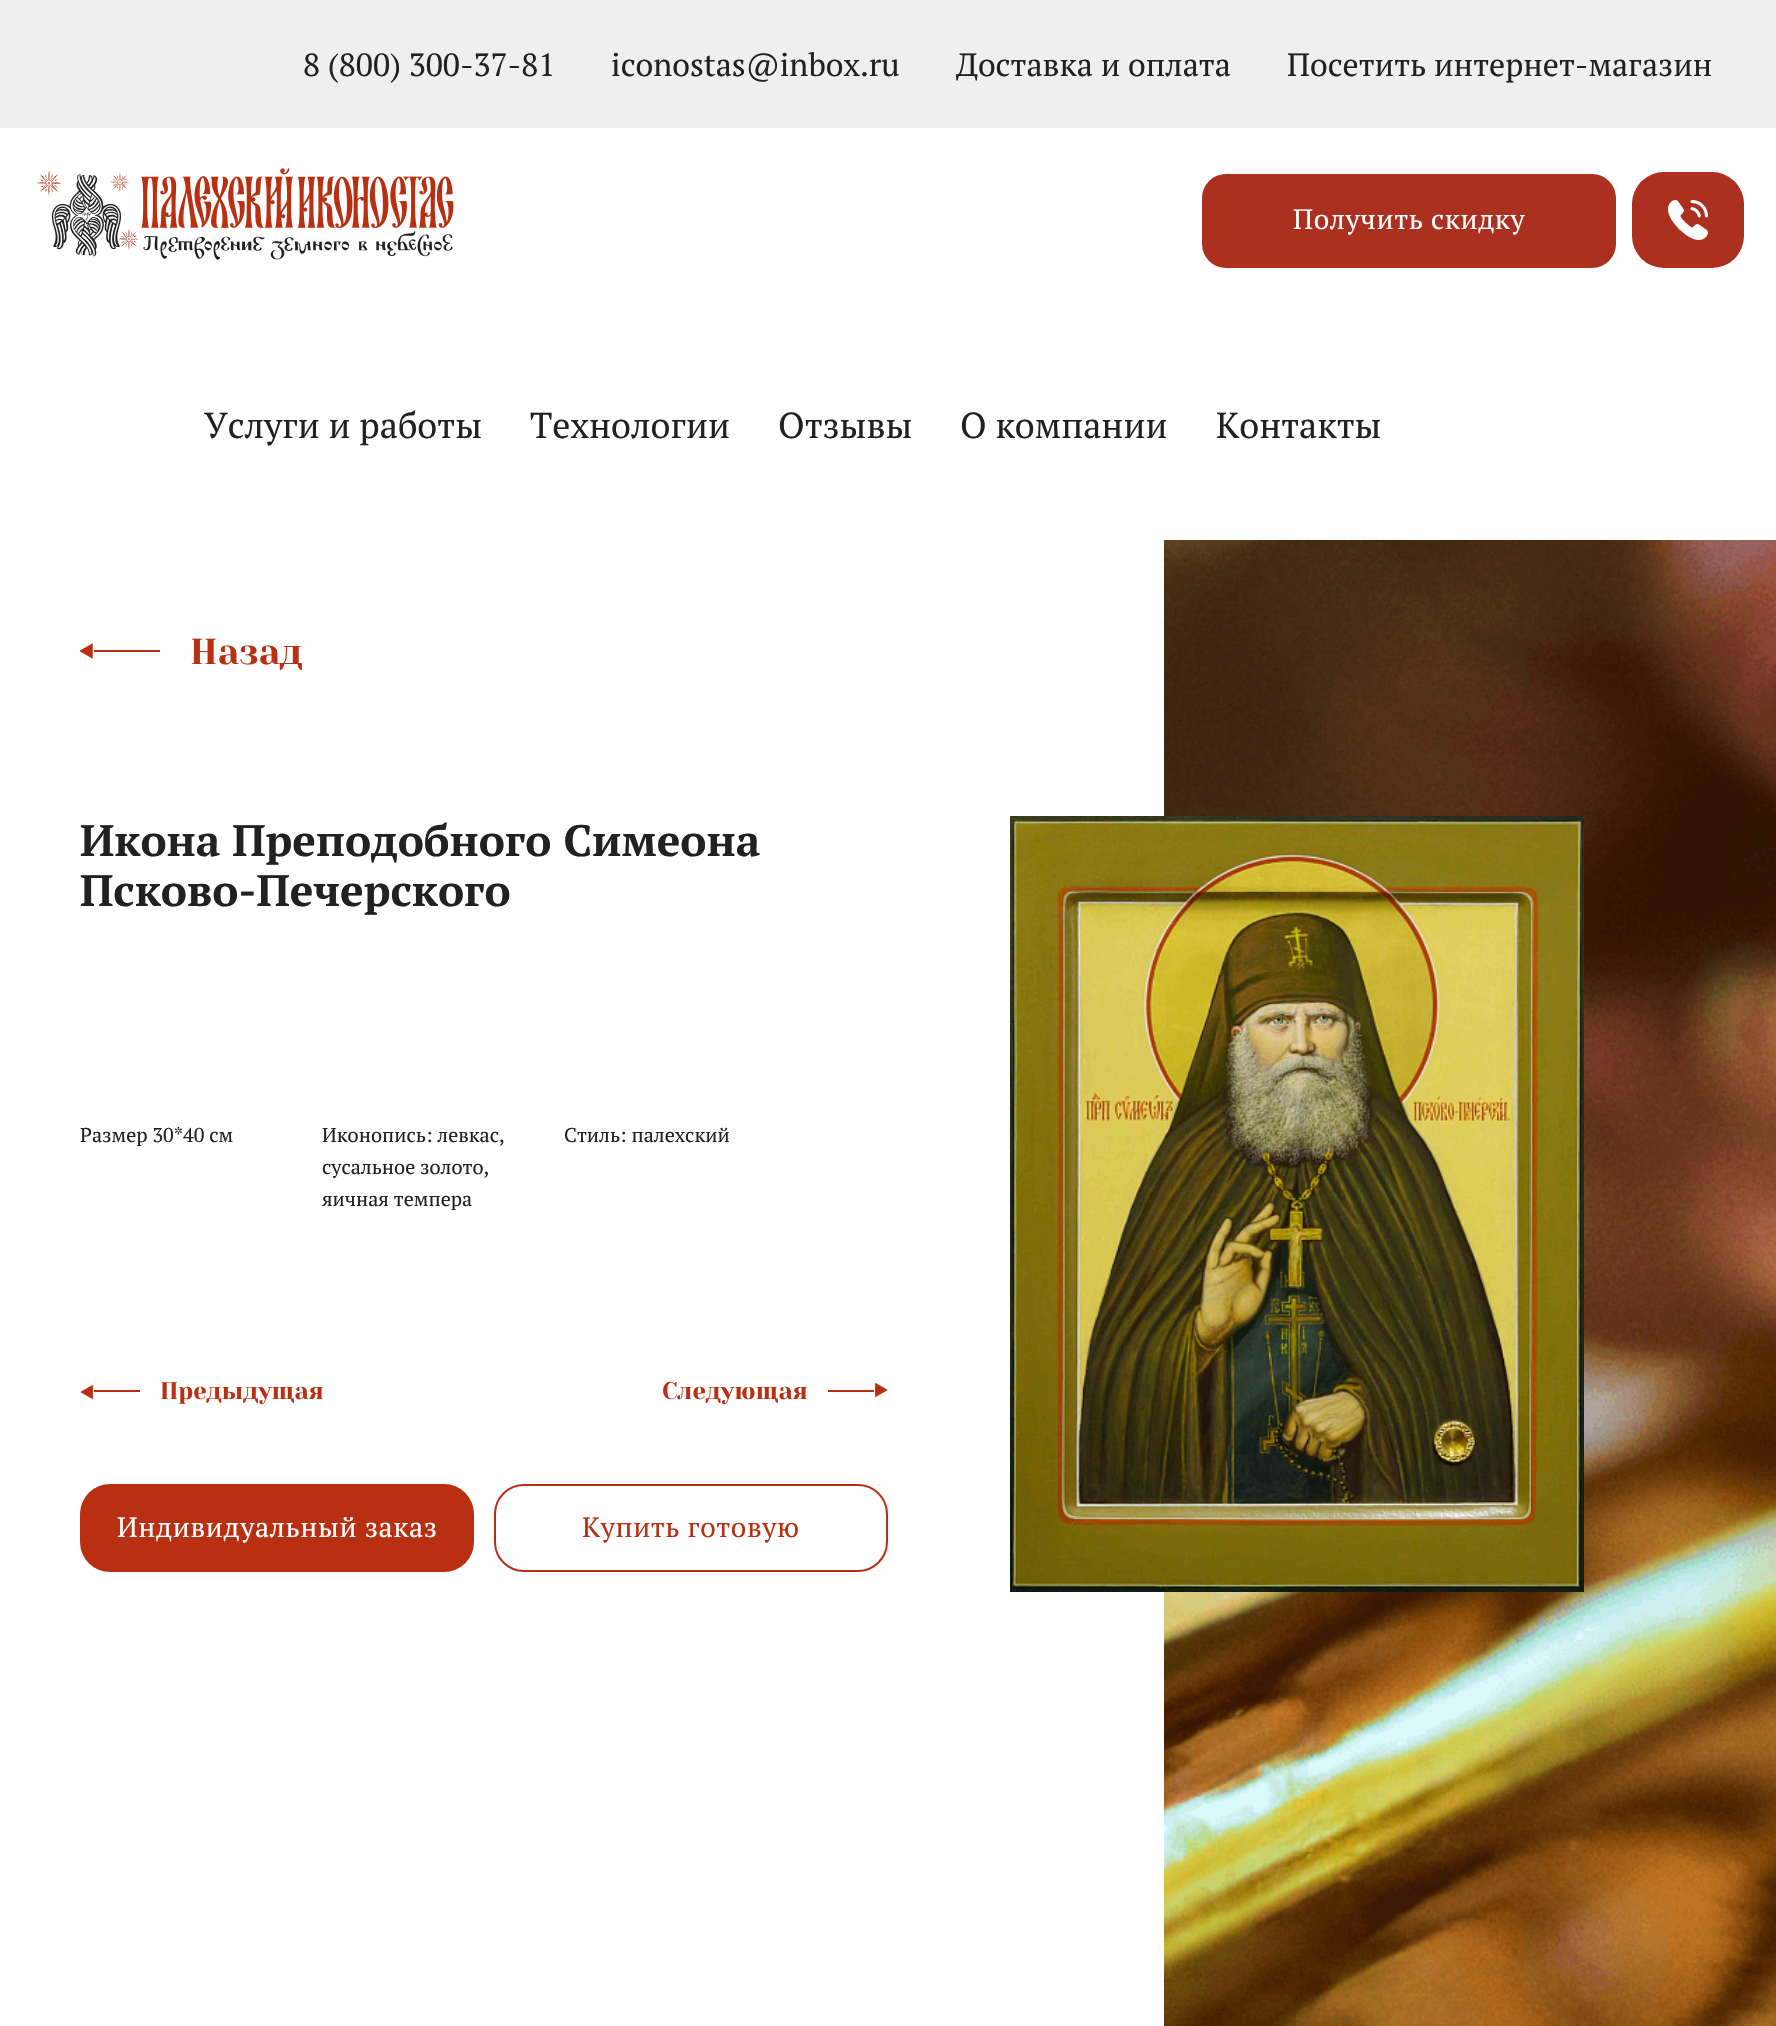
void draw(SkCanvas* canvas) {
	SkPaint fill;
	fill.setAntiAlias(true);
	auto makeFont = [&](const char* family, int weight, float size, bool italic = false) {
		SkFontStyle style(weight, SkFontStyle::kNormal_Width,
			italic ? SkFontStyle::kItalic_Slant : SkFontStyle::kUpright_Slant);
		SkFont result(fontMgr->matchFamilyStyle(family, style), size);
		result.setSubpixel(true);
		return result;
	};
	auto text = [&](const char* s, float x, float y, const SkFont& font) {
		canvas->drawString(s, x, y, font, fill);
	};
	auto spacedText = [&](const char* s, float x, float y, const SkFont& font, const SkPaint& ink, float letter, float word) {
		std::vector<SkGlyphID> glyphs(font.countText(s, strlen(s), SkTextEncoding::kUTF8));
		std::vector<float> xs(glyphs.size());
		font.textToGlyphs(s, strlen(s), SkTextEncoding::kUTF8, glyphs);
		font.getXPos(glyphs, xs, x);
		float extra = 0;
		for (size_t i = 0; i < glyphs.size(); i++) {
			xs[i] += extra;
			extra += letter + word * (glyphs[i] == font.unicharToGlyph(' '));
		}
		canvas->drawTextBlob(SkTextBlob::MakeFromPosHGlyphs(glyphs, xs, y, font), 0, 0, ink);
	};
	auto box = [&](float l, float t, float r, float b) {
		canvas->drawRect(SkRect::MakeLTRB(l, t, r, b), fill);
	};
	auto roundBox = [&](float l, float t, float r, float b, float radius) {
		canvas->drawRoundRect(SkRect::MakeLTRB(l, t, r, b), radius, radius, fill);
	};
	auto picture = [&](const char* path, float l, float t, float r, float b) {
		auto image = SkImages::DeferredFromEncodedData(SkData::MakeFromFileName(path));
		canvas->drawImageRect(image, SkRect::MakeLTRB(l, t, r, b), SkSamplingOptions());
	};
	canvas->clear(0xFFFFFFFF);
	fill.setColor(0xFFEFEFEF);
	box(0, 0, 1776, 128);
	picture("image0.png", 36, 170, 62, 196);
	picture("image1.png", 110, 172, 130, 192);
	picture("image3.png", 118, 228, 140, 250);
	picture("image2.png", 51, 174, 121, 257);
	picture("image4.png", 141, 168, 454, 260);
	fill.setColor(0xFFAB3020);
	roundBox(1202, 174, 1616, 268, 24);
	roundBox(1632, 172, 1744, 268, 32);
	picture("image5.png", 1668, 200, 1708, 240);
	picture("image6.png", 80, 643, 93, 659);
	fill.setColor(0xFFB92F11);
	box(94, 650, 160, 652);
	picture("image7.png", 1164, 540, 1776, 2026);
	picture("image8.png", 80, 1384, 93, 1400);
	box(94, 1390, 140, 1392);
	box(828, 1390, 874, 1392);
	picture("image9.png", 875, 1382, 888, 1398);
	roundBox(80, 1484, 474, 1572, 30);
	fill.setStyle(SkPaint::kStroke_Style);
	fill.setStrokeWidth(2);
	canvas->drawRoundRect(SkRect::MakeLTRB(495, 1485, 887, 1571), 29, 29, fill);
	picture("image10.png", 1010, 816, 1584, 1592);
	auto font1 = makeFont("PT Serif", 400, 32);
	fill.setStyle(SkPaint::kFill_Style);
	fill.setColor(0xFF212121);
	text("8 (800) 300-37-81", 303, 76, font1);
	text("iconostas@inbox.ru", 611, 76, font1);
	text("Доставка и оплата", 956, 76, font1);
	text("Посетить интернет-магазин", 1287, 76, font1);
	auto font2 = makeFont("PT Serif", 400, 28);
	fill.setColor(0xFFFFFFFF);
	spacedText("Получить скидку", 1293, 229, font2, fill, 0.6f, 0);
	auto font3 = makeFont("PT Serif", 400, 36);
	fill.setColor(0xFF212121);
	text("Услуги и работы", 204, 438, font3);
	text("Технологии", 530, 438, font3);
	text("Отзывы", 778, 438, font3);
	text("О компании", 960, 438, font3);
	text("Контакты", 1216, 438, font3);
	auto font4 = makeFont("Yeseva One", 400, 36);
	fill.setColor(0xFFB92F11);
	text("Назад", 190, 664, font4);
	auto font5 = makeFont("PT Serif", 700, 44);
	fill.setColor(0xFF212121);
	text("Икона Преподобного Симеона", 80, 856, font5);
	text("Псково-Печерского", 80, 906, font5);
	auto font6 = makeFont("PT Serif", 400, 20);
	text("Размер 30*40 см", 80, 1142, font6);
	text("Иконопись: левкас,", 322, 1142, font6);
	text("сусальное золото,", 322, 1174, font6);
	text("яичная темпера", 322, 1206, font6);
	text("Стиль: палехский", 564, 1142, font6);
	auto font7 = makeFont("Yeseva One", 400, 24);
	fill.setColor(0xFFB92F11);
	text("Предыдущая", 160, 1399, font7);
	text("Следующая", 662, 1399, font7);
	fill.setColor(0xFFFFFFFF);
	spacedText("Индивидуальный заказ", 117, 1537, font2, fill, 0.6f, 0);
	fill.setColor(0xFFB92F11);
	spacedText("Купить готовую", 582, 1537, font2, fill, 0.6f, 0);
}
